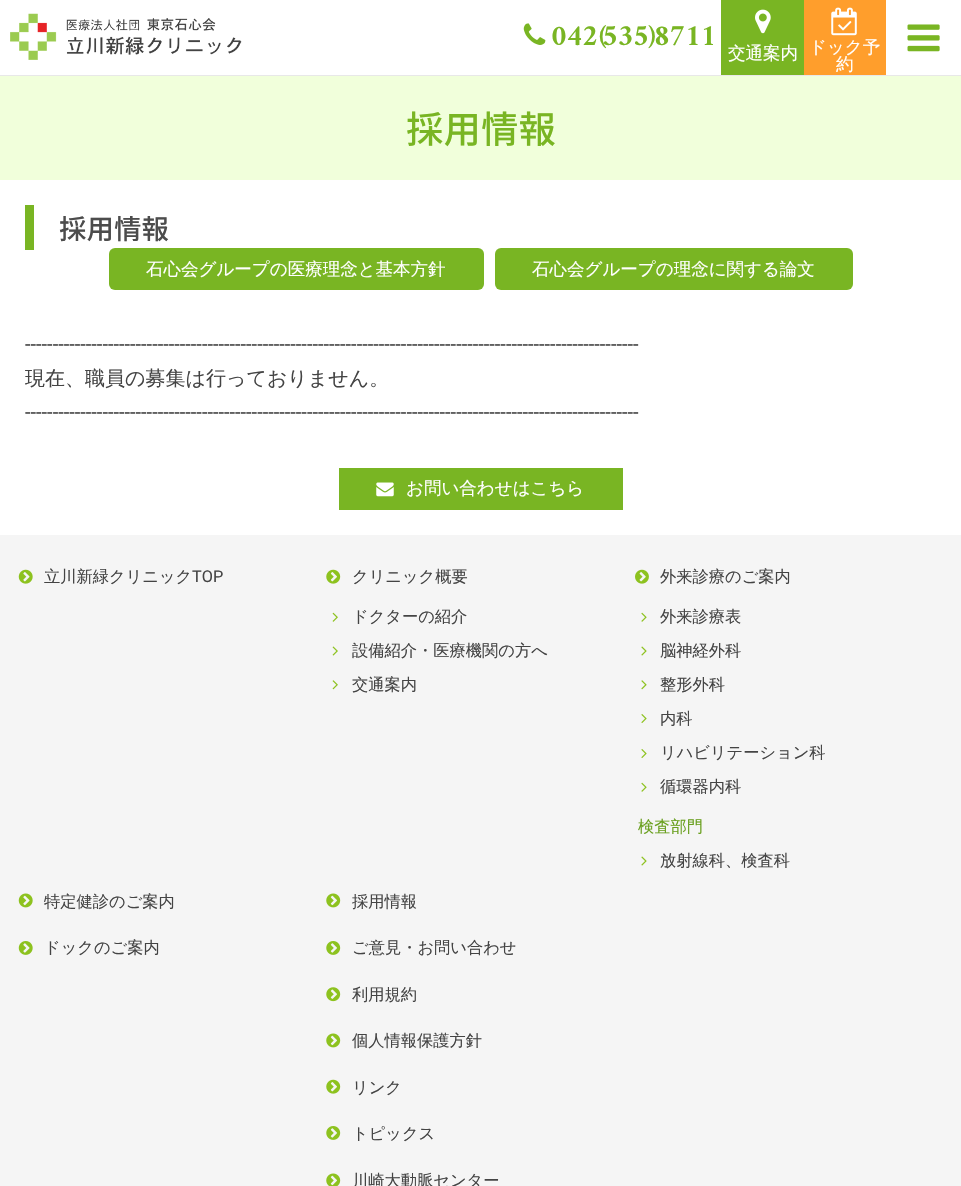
void draw(SkCanvas* canvas) {
	SkPaint fill;
	fill.setAntiAlias(true);
	auto makeFont = [&](const char* family, int weight, float size, bool italic = false) {
		SkFontStyle style(weight, SkFontStyle::kNormal_Width,
			italic ? SkFontStyle::kItalic_Slant : SkFontStyle::kUpright_Slant);
		SkFont result(fontMgr->matchFamilyStyle(family, style), size);
		result.setSubpixel(true);
		return result;
	};
	auto text = [&](const char* s, float x, float y, const SkFont& font) {
		canvas->drawString(s, x, y, font, fill);
	};
	auto spacedText = [&](const char* s, float x, float y, const SkFont& font, const SkPaint& ink, float letter, float word) {
		std::vector<SkGlyphID> glyphs(font.countText(s, strlen(s), SkTextEncoding::kUTF8));
		std::vector<float> xs(glyphs.size());
		font.textToGlyphs(s, strlen(s), SkTextEncoding::kUTF8, glyphs);
		font.getXPos(glyphs, xs, x);
		float extra = 0;
		for (size_t i = 0; i < glyphs.size(); i++) {
			xs[i] += extra;
			extra += letter + word * (glyphs[i] == font.unicharToGlyph(' '));
		}
		canvas->drawTextBlob(SkTextBlob::MakeFromPosHGlyphs(glyphs, xs, y, font), 0, 0, ink);
	};
	auto box = [&](float l, float t, float r, float b) {
		canvas->drawRect(SkRect::MakeLTRB(l, t, r, b), fill);
	};
	auto roundBox = [&](float l, float t, float r, float b, float radius) {
		canvas->drawRoundRect(SkRect::MakeLTRB(l, t, r, b), radius, radius, fill);
	};
	auto picture = [&](const char* path, float l, float t, float r, float b) {
		auto image = SkImages::DeferredFromEncodedData(SkData::MakeFromFileName(path));
		canvas->drawImageRect(image, SkRect::MakeLTRB(l, t, r, b), SkSamplingOptions());
	};
	canvas->clear(0xFFFFFFFF);
	fill.setColor(0xFFE8E8E8);
	box(0, 75, 961, 76);
	picture("image0.png", 10, 13, 242, 60);
	picture("image1.png", 523, 23, 546, 45);
	fill.setColor(0xFF79B523);
	box(721, 0, 804, 75);
	picture("image2.png", 755, 9, 771, 34);
	fill.setColor(0xFFFF9E2C);
	box(804, 0, 886, 75);
	picture("image3.png", 831, 7, 857, 36);
	picture("image4.png", 907, 24, 940, 52);
	fill.setColor(0xFFF1FFDB);
	box(0, 76, 961, 180);
	fill.setColor(0xFF79B523);
	box(25, 205, 34, 250);
	roundBox(109, 248, 484, 290, 6);
	roundBox(495, 248, 853, 290, 6);
	box(339, 468, 623, 510);
	picture("image5.png", 376, 482, 394, 497);
	fill.setColor(0xFFF5F5F5);
	box(0, 535, 961, 1186);
	picture("image6.png", 18, 569, 33, 584);
	picture("image7.png", 326, 569, 341, 584);
	picture("image8.png", 332, 612, 338, 622);
	picture("image9.png", 332, 646, 338, 656);
	picture("image10.png", 332, 680, 338, 690);
	picture("image11.png", 635, 569, 649, 584);
	picture("image12.png", 641, 612, 647, 622);
	picture("image13.png", 641, 646, 647, 656);
	picture("image14.png", 641, 680, 647, 690);
	picture("image15.png", 641, 714, 647, 723);
	picture("image15.png", 641, 749, 647, 758);
	picture("image12.png", 641, 782, 647, 792);
	picture("image13.png", 641, 856, 647, 866);
	picture("image16.png", 18, 893, 33, 908);
	picture("image17.png", 18, 941, 33, 955);
	picture("image18.png", 326, 893, 341, 908);
	picture("image19.png", 326, 941, 341, 955);
	picture("image20.png", 326, 987, 341, 1002);
	picture("image18.png", 326, 1033, 341, 1048);
	picture("image7.png", 326, 1079, 341, 1094);
	picture("image19.png", 326, 1126, 341, 1140);
	picture("image21.png", 326, 1173, 341, 1186);
	auto font1 = makeFont("Amiri", 700, 30);
	fill.setColor(0xFF79B523);
	spacedText("042", 551, 45, font1, fill, -0.5f, 0);
	spacedText("535", 602, 45, font1, fill, -0.5f, 0);
	auto font2 = makeFont("Amiri", 700, 21);
	spacedText("(", 597, 40, font2, fill, -0.5f, 0);
	spacedText("8711", 654, 45, font1, fill, -0.5f, 0);
	spacedText(")", 648, 40, font2, fill, -0.5f, 0);
	auto font3 = makeFont("WenQuanYi Zen Hei", 500, 17.5f);
	fill.setColor(0xFFFFFFFF);
	text("交通案内", 728, 59, font3);
	text("ドック予", 809, 53, font3);
	text("約", 836, 70, font3);
	auto font4 = makeFont("Noto Sans JP", 500, 37.5f);
	fill.setColor(0xFF79B523);
	text("採用情報", 406, 143, font4);
	auto font5 = makeFont("Noto Sans JP", 500, 27.5f);
	fill.setColor(0xFF4C4C4C);
	text("採用情報", 59, 239, font5);
	fill.setColor(0xFFFFFFFF);
	text("石心会グループの医療理念と基本方針", 146, 275, font3);
	text("石心会グループの理念に関する論文", 532, 275, font3);
	auto font6 = makeFont("Roboto", 400, 20);
	fill.setColor(0xFF444444);
	text("---------------------------------------------------------------------------------------------------------------", 25, 351, font6);
	auto font7 = makeFont("WenQuanYi Zen Hei", 500, 20);
	text("現在、職員の募集は行っておりません。", 25, 385, font7);
	text("---------------------------------------------------------------------------------------------------------------", 25, 419, font6);
	fill.setColor(0xFFFFFFFF);
	text("お問い合わせはこちら", 406, 494, font3);
	auto font8 = makeFont("WenQuanYi Zen Hei", 500, 16.25f);
	fill.setColor(0xFF444444);
	text("立川新緑クリニック", 44, 582, font8);
	auto font9 = makeFont("Roboto", 400, 16.25f);
	text("TOP", 192, 582, font9);
	text("クリニック概要", 352, 582, font8);
	text("ドクターの紹介", 352, 622, font8);
	text("設備紹介・医療機関の方へ", 352, 656, font8);
	text("交通案内", 352, 690, font8);
	text("外来診療のご案内", 660, 582, font8);
	text("外来診療表", 660, 622, font8);
	text("脳神経外科", 660, 656, font8);
	text("整形外科", 660, 690, font8);
	text("内科", 660, 724, font8);
	text("リハビリテーション科", 660, 758, font8);
	text("循環器内科", 660, 792, font8);
	fill.setColor(0xFF6AA01F);
	text("検査部門", 638, 832, font8);
	fill.setColor(0xFF444444);
	text("放射線科、検査科", 660, 866, font8);
	text("特定健診のご案内", 44, 907, font8);
	text("ドックのご案内", 44, 953, font8);
	text("採用情報", 352, 907, font8);
	text("ご意見・お問い合わせ", 352, 953, font8);
	text("利用規約", 352, 1000, font8);
	text("個人情報保護方針", 352, 1046, font8);
	text("リンク", 352, 1093, font8);
	text("トピックス", 352, 1139, font8);
	text("川崎大動脈センター", 352, 1186, font8);
}
